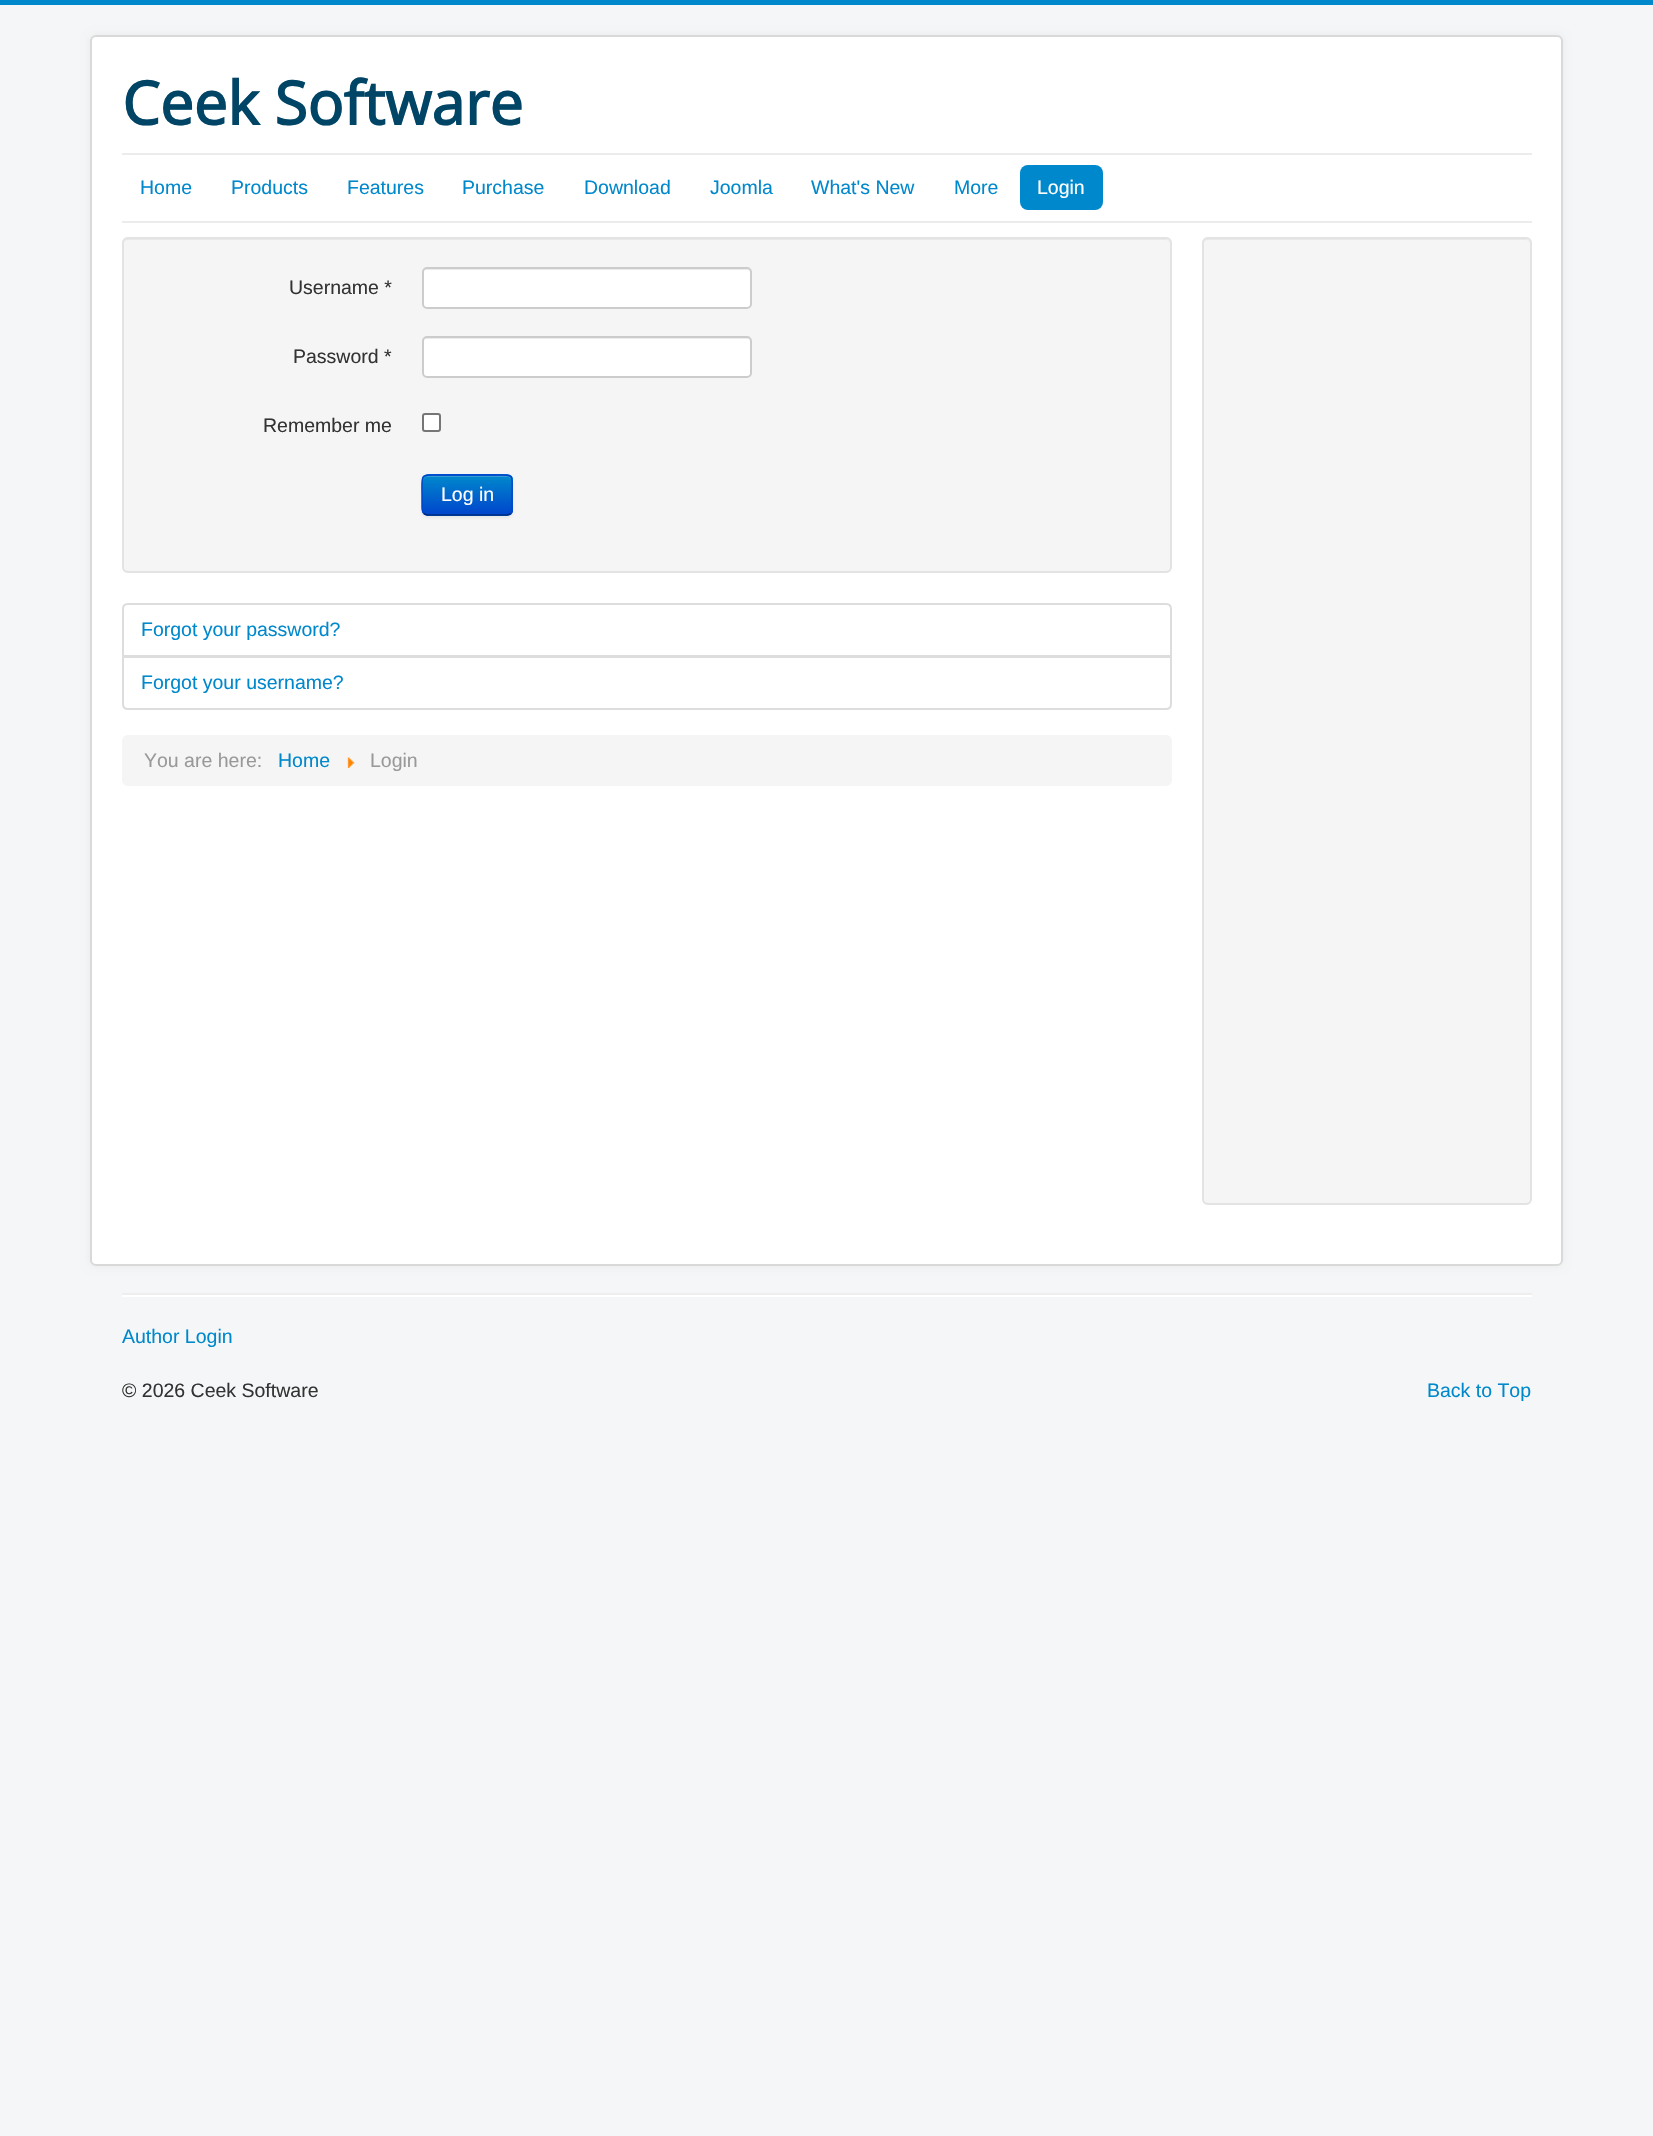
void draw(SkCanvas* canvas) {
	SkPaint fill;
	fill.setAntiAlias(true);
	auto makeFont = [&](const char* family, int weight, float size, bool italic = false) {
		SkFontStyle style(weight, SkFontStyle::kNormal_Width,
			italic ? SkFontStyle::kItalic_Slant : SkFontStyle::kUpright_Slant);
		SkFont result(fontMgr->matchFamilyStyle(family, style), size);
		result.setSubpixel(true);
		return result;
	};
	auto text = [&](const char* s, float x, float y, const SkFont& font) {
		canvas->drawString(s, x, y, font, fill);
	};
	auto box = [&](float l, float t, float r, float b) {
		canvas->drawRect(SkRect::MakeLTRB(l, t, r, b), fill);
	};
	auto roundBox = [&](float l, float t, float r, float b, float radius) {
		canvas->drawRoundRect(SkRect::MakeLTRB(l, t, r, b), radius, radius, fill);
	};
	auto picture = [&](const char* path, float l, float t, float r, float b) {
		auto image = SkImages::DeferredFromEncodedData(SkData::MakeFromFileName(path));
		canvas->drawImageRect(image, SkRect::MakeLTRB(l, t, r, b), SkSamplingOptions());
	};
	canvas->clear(0xFFF4F6F7);
	fill.setColor(0xFF0088CC);
	box(0, 0, 1653, 5);
	fill.setColor(0x0D000000);
	fill.setMaskFilter(SkMaskFilter::MakeBlur(kNormal_SkBlurStyle, 4.5f));
	canvas->drawRoundRect(SkRect::MakeLTRB(90, 35, 1563, 1266), 6, 6, fill);
	fill.setMaskFilter(nullptr);
	fill.setColor(0xFFFFFFFF);
	roundBox(90, 35, 1563, 1266, 6);
	fill.setStyle(SkPaint::kStroke_Style);
	fill.setStrokeWidth(2);
	fill.setColor(0x26000000);
	canvas->drawRoundRect(SkRect::MakeLTRB(91, 36, 1562, 1265), 5, 5, fill);
	fill.setStyle(SkPaint::kFill_Style);
	fill.setColor(0xFFECECEC);
	box(122, 153, 1532, 155);
	box(122, 221, 1532, 223);
	fill.setColor(0xFF0088CC);
	roundBox(1020, 165, 1103, 210, 8);
	fill.setColor(0xFFF5F5F5);
	roundBox(122, 237, 1172, 573, 6);
	fill.setColor(0xFFE9E9E9);
	canvas->drawPath(SkPathBuilder().moveTo(128, 240).lineTo(1166, 240).cubicTo(1168, 240, 1170, 242, 1170, 244).cubicTo(1170, 241, 1168, 239, 1165, 239).lineTo(128, 239).cubicTo(125, 239, 123, 241, 123, 244).cubicTo(123, 242, 125, 240, 128, 240).close().detach(), fill);
	fill.setStyle(SkPaint::kStroke_Style);
	fill.setColor(0xFFE3E3E3);
	canvas->drawRoundRect(SkRect::MakeLTRB(123, 238, 1171, 572), 5, 5, fill);
	fill.setStyle(SkPaint::kFill_Style);
	fill.setColor(0xFFFFFFFF);
	roundBox(422, 267, 752, 309, 5);
	fill.setColor(0xFFECECEC);
	canvas->drawPath(SkPathBuilder().moveTo(426, 270).lineTo(747, 270).cubicTo(749, 270, 750, 271, 750, 273).cubicTo(750, 271, 749, 269, 747, 269).lineTo(426, 269).cubicTo(424, 269, 423, 271, 423, 273).cubicTo(423, 271, 424, 270, 426, 270).close().detach(), fill);
	fill.setStyle(SkPaint::kStroke_Style);
	fill.setColor(0xFFCCCCCC);
	canvas->drawRoundRect(SkRect::MakeLTRB(423, 268, 751, 308), 4, 4, fill);
	fill.setStyle(SkPaint::kFill_Style);
	fill.setColor(0xFFFFFFFF);
	roundBox(422, 336, 752, 378, 5);
	fill.setColor(0xFFECECEC);
	canvas->drawPath(SkPathBuilder().moveTo(426, 339).lineTo(747, 339).cubicTo(749, 339, 750, 340, 750, 342).cubicTo(750, 340, 749, 338, 747, 338).lineTo(426, 338).cubicTo(424, 338, 423, 340, 423, 342).cubicTo(423, 340, 424, 339, 426, 339).close().detach(), fill);
	fill.setStyle(SkPaint::kStroke_Style);
	fill.setColor(0xFFCCCCCC);
	canvas->drawRoundRect(SkRect::MakeLTRB(423, 337, 751, 377), 4, 4, fill);
	fill.setStyle(SkPaint::kFill_Style);
	fill.setColor(0xFFFFFFFF);
	canvas->drawRoundRect(SkRect::MakeLTRB(423, 414, 440, 431), 2, 2, fill);
	fill.setStyle(SkPaint::kStroke_Style);
	fill.setColor(0xFF767676);
	canvas->drawRoundRect(SkRect::MakeLTRB(423, 414, 440, 431), 2, 2, fill);
	fill.setStyle(SkPaint::kFill_Style);
	fill.setColor(0x0D000000);
	fill.setMaskFilter(SkMaskFilter::MakeBlur(kNormal_SkBlurStyle, 1.5f));
	canvas->drawRoundRect(SkRect::MakeLTRB(422, 476, 513, 518), 6, 6, fill);
	fill.setMaskFilter(nullptr);
	fill.setColor(0xFF006DCC);
	roundBox(422, 474, 513, 516, 6);
	canvas->save();
	canvas->clipPath(SkPathBuilder().moveTo(428, 474).lineTo(507, 474).cubicTo(510.5f, 474, 513, 476.5f, 513, 480).lineTo(513, 510).cubicTo(513, 513.5f, 510.5f, 516, 507, 516).lineTo(428, 516).cubicTo(424.5f, 516, 422, 513.5f, 422, 510).lineTo(422, 480).cubicTo(422, 476.5f, 424.5f, 474, 428, 474).close().detach(), true);
	{
		const SkColor colors[] = {0xFF0088CC, 0xFF0044CC};
		const float stops[] = {0, 1};
		const SkPoint ends[] = {{467, 476}, {467, 515}};
		fill.setShader(SkGradientShader::MakeLinear(ends, colors, stops, 2, SkTileMode::kClamp));
		fill.setAlpha(255);
	}
	box(422, 476, 513, 515);
	canvas->restore();
	fill.setShader(nullptr);
	fill.setColor(0x33FFFFFF);
	canvas->drawPath(SkPathBuilder().moveTo(428, 477).lineTo(507, 477).cubicTo(509, 477, 512, 479, 512, 482).cubicTo(512, 473, 499, 476, 494, 476).lineTo(441, 476).cubicTo(436, 476, 423, 473, 423, 482).cubicTo(423, 479, 425, 477, 428, 477).close().detach(), fill);
	fill.setStyle(SkPaint::kStroke_Style);
	fill.setStrokeWidth(1.5f);
	fill.setColor(0xFF002A80);
	canvas->drawPath(SkPathBuilder().moveTo(510.5f, 513.5f).lineTo(507.5f, 515).lineTo(427, 515).lineTo(424, 513.5f).detach(), fill);
	fill.setColor(0xFF0044CC);
	canvas->drawPath(SkPathBuilder().moveTo(424, 513.5f).cubicTo(421.5f, 511.5f, 422, 508, 422, 505).lineTo(422, 495).cubicTo(422, 473, 419, 475, 441, 475).lineTo(494, 475).cubicTo(515.5f, 475, 512, 473, 512, 495).lineTo(512, 505).cubicTo(512, 508, 513, 511.5f, 510.5f, 513.5f).detach(), fill);
	fill.setStrokeWidth(2);
	fill.setColor(0xFFDDDDDD);
	canvas->drawPath(SkPathBuilder().moveTo(128, 604).lineTo(1166, 604).cubicTo(1169, 604, 1171, 606, 1171, 609).lineTo(1171, 656).lineTo(123, 656).lineTo(123, 609).cubicTo(123, 606, 125, 604, 128, 604).close().detach(), fill);
	canvas->drawPath(SkPathBuilder().moveTo(123, 657).lineTo(1171, 657).lineTo(1171, 704).cubicTo(1171, 707, 1169, 709, 1166, 709).lineTo(128, 709).cubicTo(125, 709, 123, 707, 123, 704).close().detach(), fill);
	fill.setStyle(SkPaint::kFill_Style);
	fill.setColor(0xFFF5F5F5);
	roundBox(122, 735, 1172, 786, 6);
	picture("image0.png", 347, 757, 355, 768);
	roundBox(1202, 237, 1532, 1205, 6);
	fill.setColor(0xFFE9E9E9);
	canvas->drawPath(SkPathBuilder().moveTo(1208, 240).lineTo(1526, 240).cubicTo(1528, 240, 1530, 242, 1530, 244).cubicTo(1530, 241, 1528, 239, 1525, 239).lineTo(1208, 239).cubicTo(1205, 239, 1203, 241, 1203, 244).cubicTo(1203, 242, 1205, 240, 1208, 240).close().detach(), fill);
	fill.setStyle(SkPaint::kStroke_Style);
	fill.setColor(0xFFE3E3E3);
	canvas->drawRoundRect(SkRect::MakeLTRB(1203, 238, 1531, 1204), 5, 5, fill);
	fill.setStyle(SkPaint::kFill_Style);
	fill.setColor(0xFFEEEEEE);
	box(122, 1293, 1532, 1295);
	fill.setColor(0xFFFFFFFF);
	box(122, 1295, 1532, 1297);
	auto font1 = makeFont("Open Sans", 700, 60);
	fill.setColor(0xFF004466);
	text("Ceek Software", 122, 125, font1);
	auto font2 = makeFont("Liberation Sans", 400, 19.5f);
	fill.setColor(0xFF0088CC);
	text("Home", 140, 194, font2);
	text("Products", 231, 194, font2);
	text("Features", 347, 194, font2);
	text("Purchase", 462, 194, font2);
	text("Download", 584, 194, font2);
	text("Joomla", 710, 194, font2);
	text("What's New", 811, 194, font2);
	text("More", 954, 194, font2);
	fill.setColor(0xFFFFFFFF);
	text("Login", 1037, 194, font2);
	fill.setColor(0xFF333333);
	text("Username *", 289, 294, font2);
	text("Password *", 293, 363, font2);
	text("Remember me", 263, 432, font2);
	fill.setColor(0xFFFFFFFF);
	text("Log in", 441, 501, font2);
	fill.setColor(0xFF0088CC);
	text("Forgot your password?", 141, 636, font2);
	text("Forgot your username?", 141, 689, font2);
	fill.setColor(0xFF999999);
	text("You are here:", 144, 767, font2);
	fill.setColor(0xFF0088CC);
	text("Home", 278, 767, font2);
	fill.setColor(0xFF999999);
	text("Login", 370, 767, font2);
	fill.setColor(0xFF0088CC);
	text("Author Login", 122, 1343, font2);
	fill.setColor(0xFF333333);
	text("© 2026 Ceek Software", 122, 1397, font2);
	fill.setColor(0xFF0088CC);
	text("Back to Top", 1427, 1397, font2);
}
